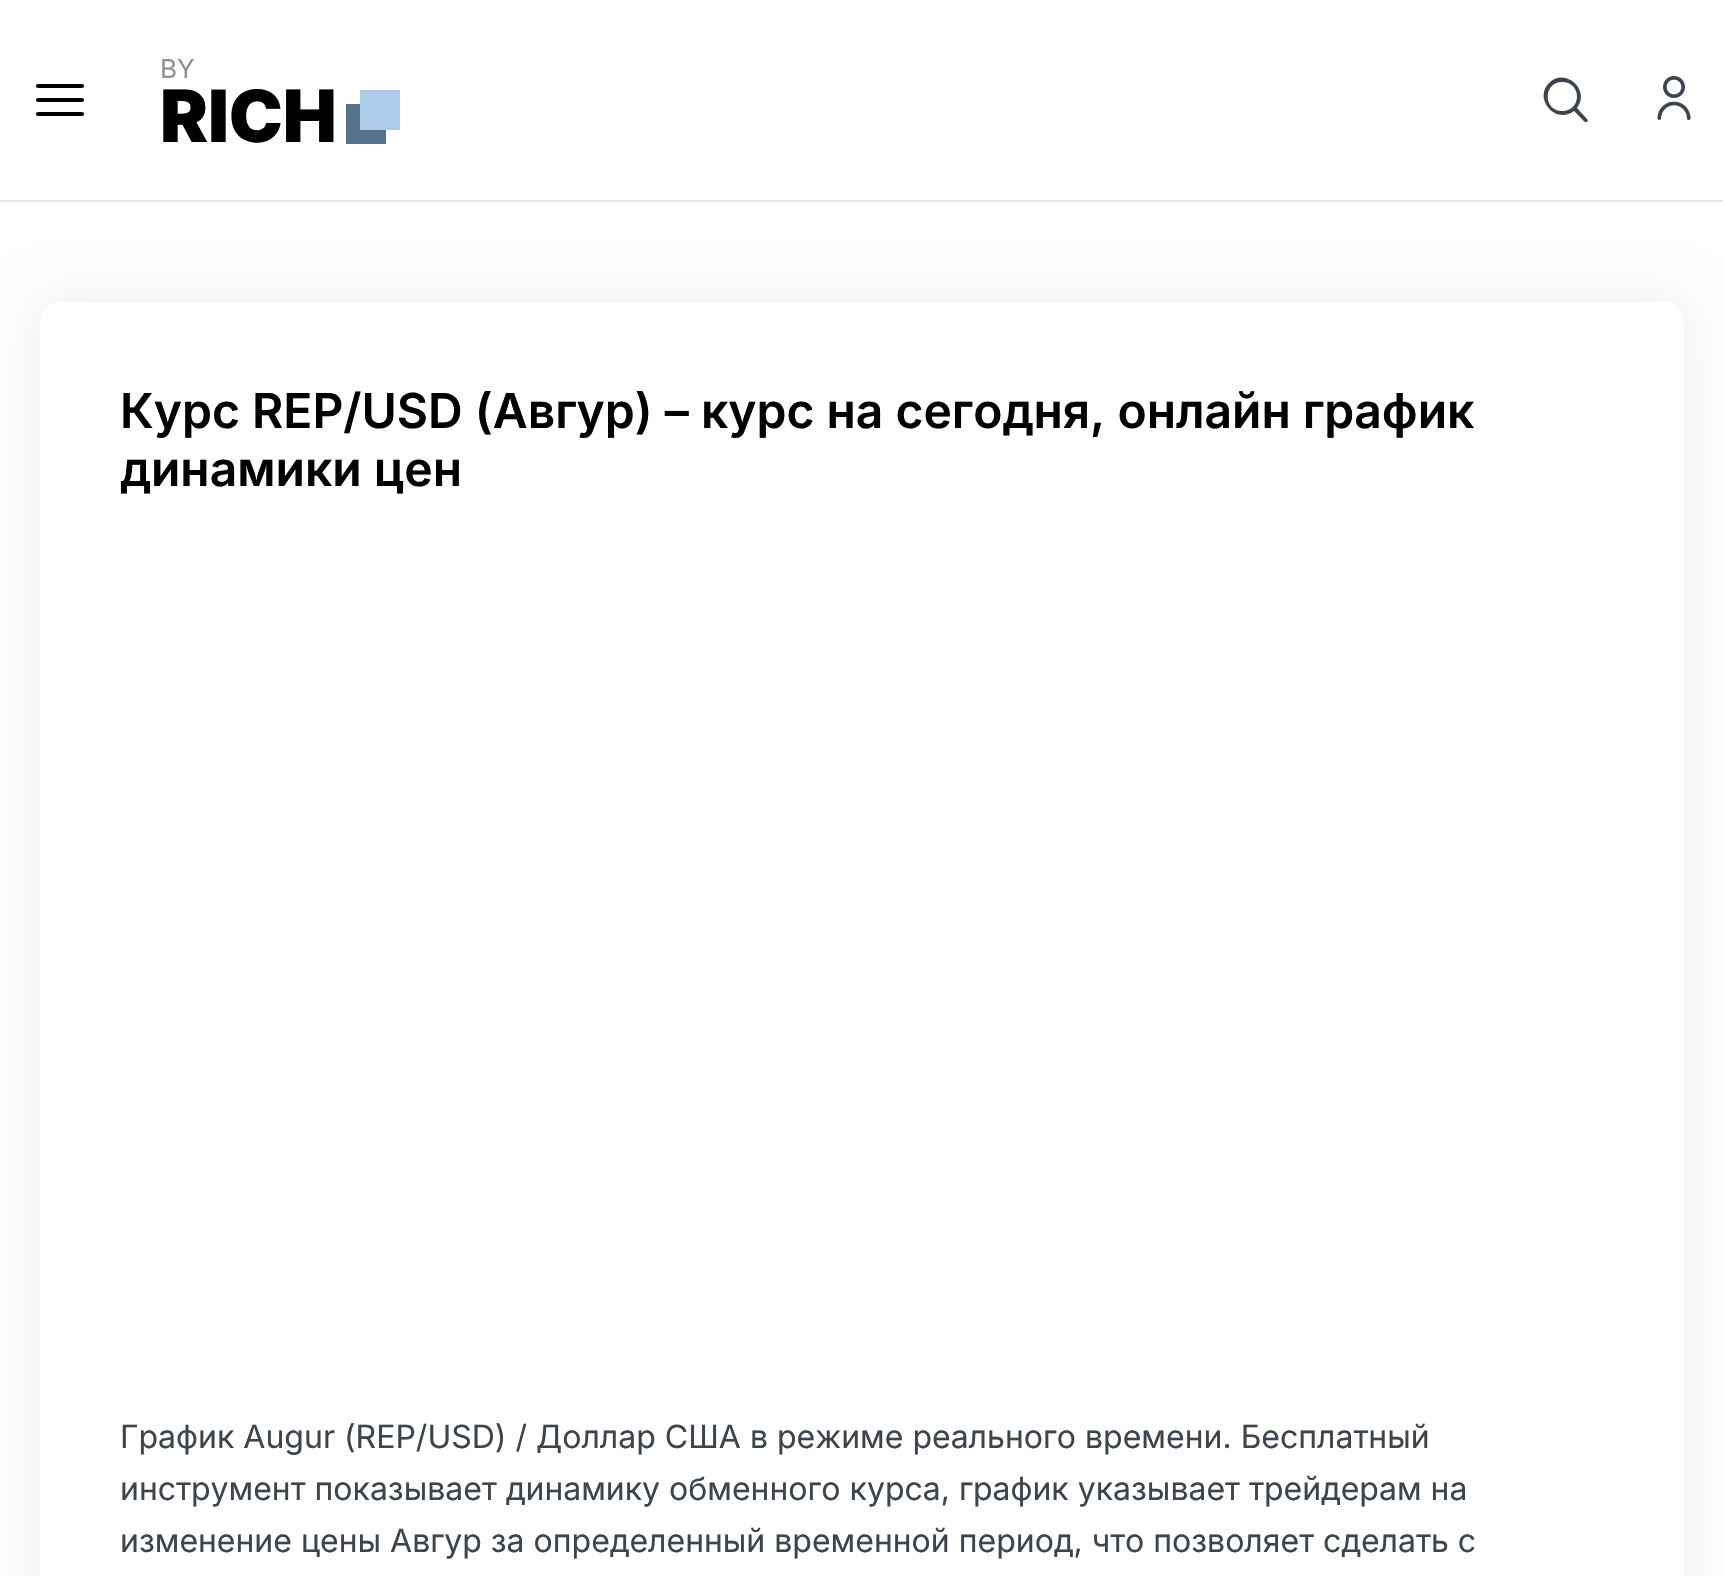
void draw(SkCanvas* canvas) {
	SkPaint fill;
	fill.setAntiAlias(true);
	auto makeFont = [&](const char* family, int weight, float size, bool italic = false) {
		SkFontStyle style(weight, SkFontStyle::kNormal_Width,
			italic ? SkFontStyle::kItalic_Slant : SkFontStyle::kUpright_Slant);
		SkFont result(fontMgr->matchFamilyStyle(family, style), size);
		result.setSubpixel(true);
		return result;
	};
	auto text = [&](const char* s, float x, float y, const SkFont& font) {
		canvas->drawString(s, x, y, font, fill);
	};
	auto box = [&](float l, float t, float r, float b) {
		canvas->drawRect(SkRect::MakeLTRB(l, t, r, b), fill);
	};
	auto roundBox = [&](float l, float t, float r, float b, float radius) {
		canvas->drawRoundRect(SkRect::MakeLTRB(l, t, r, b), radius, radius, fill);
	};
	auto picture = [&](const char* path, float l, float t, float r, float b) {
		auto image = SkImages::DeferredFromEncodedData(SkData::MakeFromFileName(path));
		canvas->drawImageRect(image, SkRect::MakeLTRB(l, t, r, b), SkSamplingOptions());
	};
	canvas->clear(0xFFFFFFFF);
	fill.setColor(0xFFE6E6E6);
	box(0, 200, 1723, 202);
	picture("image0.png", 36, 84, 84, 116);
	fill.setColor(0xFF55728B);
	box(346, 104, 386, 144);
	fill.setColor(0xFFABCDEA);
	box(360, 90, 400, 130);
	fill.setColor(0xFF3C444D);
	canvas->drawPath(SkPathBuilder().moveTo(1587, 119).lineTo(1577, 108).cubicTo(1591, 90, 1565, 67, 1549, 83).cubicTo(1533, 99, 1556, 125, 1574, 111).lineTo(1581, 118).cubicTo(1582, 119, 1585, 123, 1587, 122).cubicTo(1588, 121, 1588, 120, 1587, 119).close().moveTo(1562, 111).cubicTo(1543, 111, 1543, 82, 1562, 82).cubicTo(1582, 82, 1582, 111, 1562, 111).close().detach(), fill);
	picture("image1.png", 1657, 76, 1691, 120);
	fill.setColor(0x14000000);
	fill.setMaskFilter(SkMaskFilter::MakeBlur(kNormal_SkBlurStyle, 27));
	canvas->drawRoundRect(SkRect::MakeLTRB(40, 302, 1684, 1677), 20, 20, fill);
	fill.setMaskFilter(nullptr);
	fill.setColor(0xFFFFFFFF);
	roundBox(40, 302, 1684, 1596, 20);
	auto font1 = makeFont("Inter", 400, 26);
	fill.setColor(0xFF909090);
	text("BY", 160, 78, font1);
	auto font2 = makeFont("Inter", 900, 72);
	fill.setColor(0xFF000000);
	text("RICH", 160, 142, font2);
	auto font3 = makeFont("Inter", 600, 48);
	text("Курс REP/USD (Авгур) – курс на сегодня, онлайн график", 120, 428, font3);
	text("динамики цен", 120, 486, font3);
	auto font4 = makeFont("Inter", 400, 32);
	fill.setColor(0xFF3C444D);
	text("График Augur (REP/USD) / Доллар США в режиме реального времени. Бесплатный", 120, 1448, font4);
	text("инструмент показывает динамику обменного курса, график указывает трейдерам на", 120, 1500, font4);
	text("изменение цены Авгур за определенный временной период, что позволяет сделать с", 120, 1552, font4);
}
